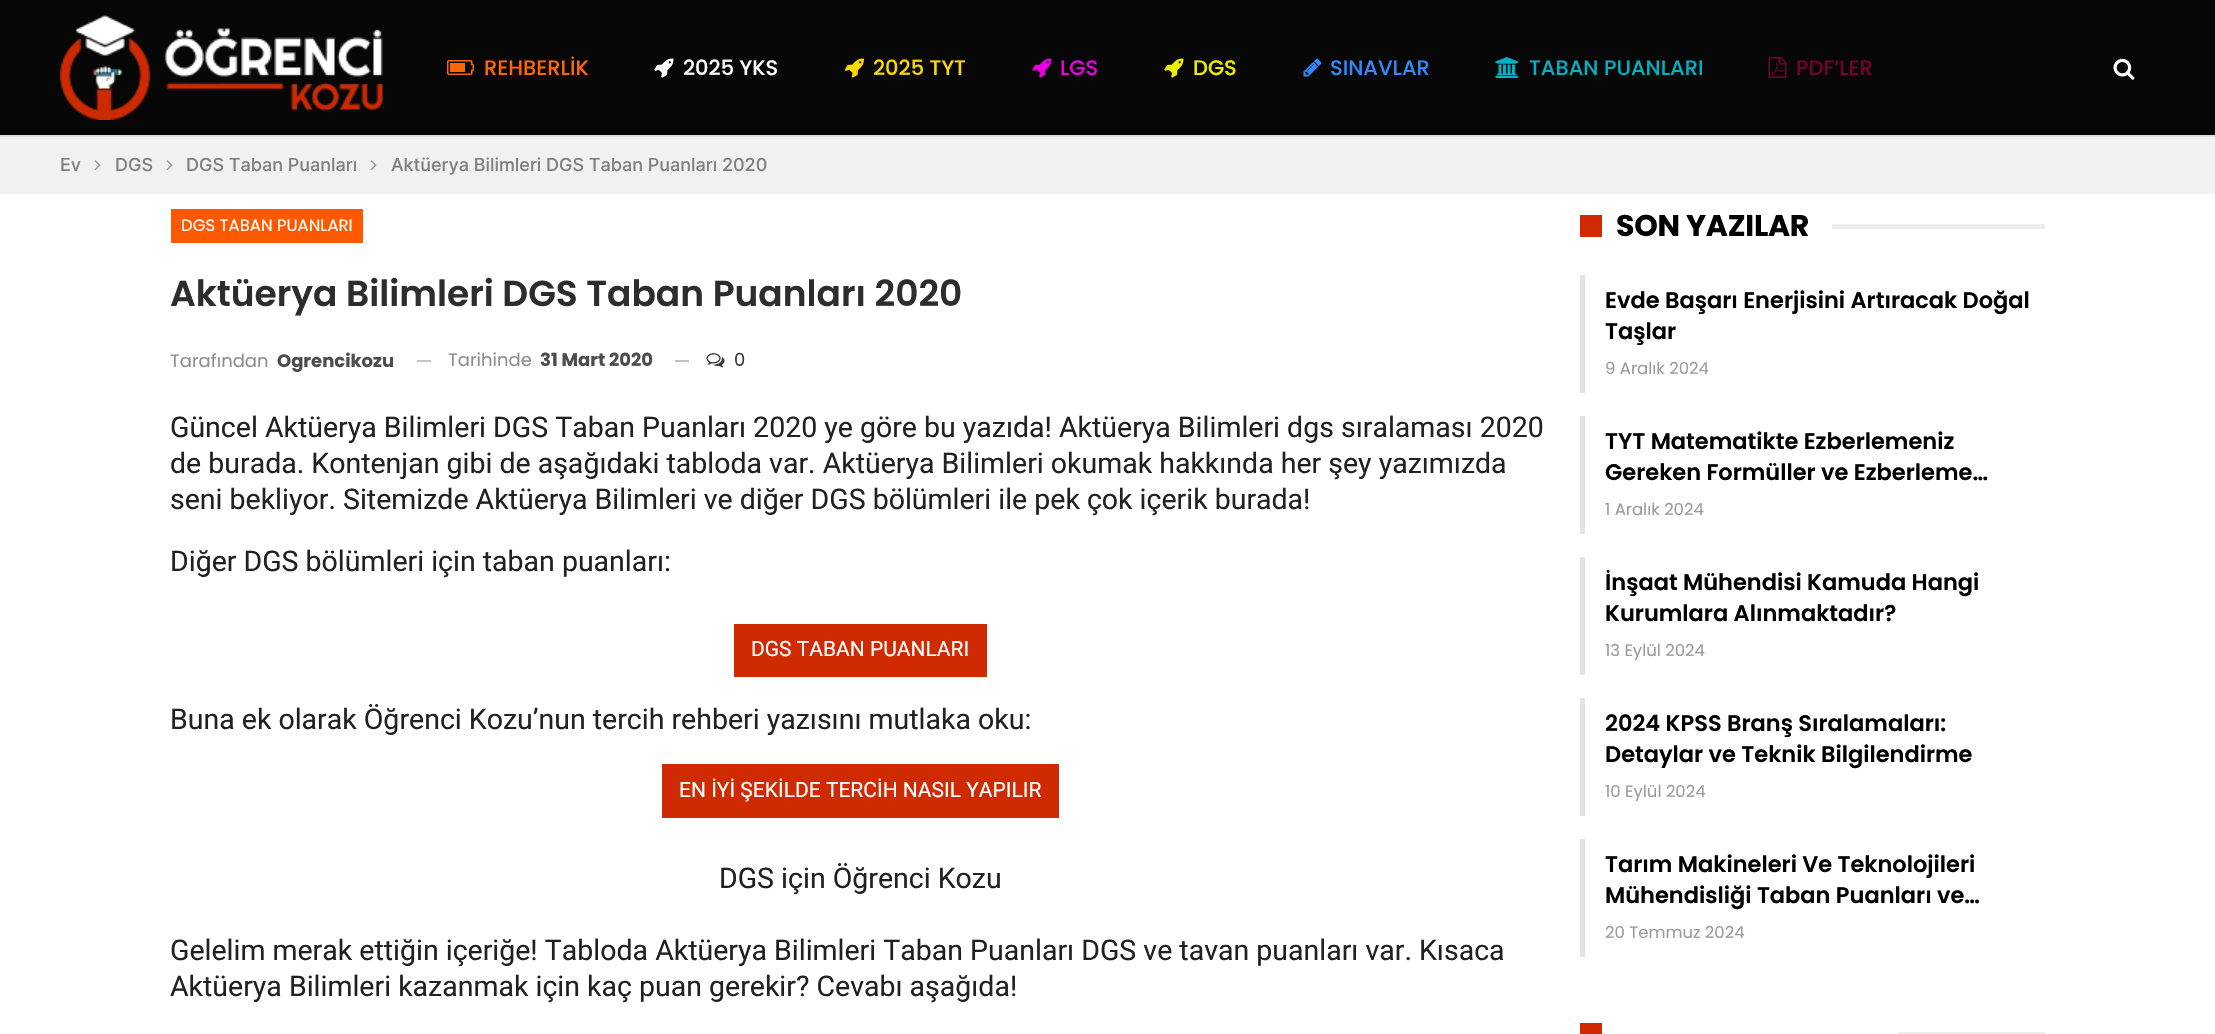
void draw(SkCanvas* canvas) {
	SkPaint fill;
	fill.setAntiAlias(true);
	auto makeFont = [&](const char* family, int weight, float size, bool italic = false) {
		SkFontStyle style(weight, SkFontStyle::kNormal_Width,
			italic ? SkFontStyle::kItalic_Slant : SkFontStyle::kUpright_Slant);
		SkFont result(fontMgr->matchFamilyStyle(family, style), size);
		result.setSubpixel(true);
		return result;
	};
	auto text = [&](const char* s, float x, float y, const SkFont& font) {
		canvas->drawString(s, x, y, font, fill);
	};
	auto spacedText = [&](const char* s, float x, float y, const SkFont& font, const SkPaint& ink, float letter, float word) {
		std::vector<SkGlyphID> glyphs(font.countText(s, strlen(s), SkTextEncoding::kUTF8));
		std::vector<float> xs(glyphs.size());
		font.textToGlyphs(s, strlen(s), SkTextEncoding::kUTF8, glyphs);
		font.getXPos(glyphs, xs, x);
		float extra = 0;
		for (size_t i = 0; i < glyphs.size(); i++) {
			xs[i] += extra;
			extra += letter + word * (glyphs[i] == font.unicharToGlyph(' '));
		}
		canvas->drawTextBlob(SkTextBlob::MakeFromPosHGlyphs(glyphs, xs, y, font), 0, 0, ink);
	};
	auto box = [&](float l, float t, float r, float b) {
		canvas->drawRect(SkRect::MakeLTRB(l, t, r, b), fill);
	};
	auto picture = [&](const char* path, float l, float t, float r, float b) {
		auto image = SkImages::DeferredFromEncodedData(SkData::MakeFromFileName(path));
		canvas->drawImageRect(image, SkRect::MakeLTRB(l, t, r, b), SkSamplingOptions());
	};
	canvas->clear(0xFFFFFFFF);
	fill.setColor(0xFF070707);
	box(0, 0, 2215, 135);
	fill.setColor(0xFFDEDEDE);
	box(0, 135, 2215, 137);
	picture("image0.png", 60, 15, 383, 120);
	picture("image1.png", 447, 60, 474, 75);
	picture("image2.png", 654, 58, 674, 78);
	picture("image3.png", 844, 58, 864, 78);
	picture("image4.png", 1032, 58, 1052, 78);
	picture("image5.png", 1164, 58, 1184, 78);
	picture("image6.png", 1303, 58, 1322, 77);
	picture("image7.png", 1495, 57, 1518, 78);
	picture("image8.png", 1768, 57, 1787, 78);
	picture("image9.png", 2113, 58, 2135, 80);
	fill.setColor(0xFFF1F1F1);
	box(0, 137, 2215, 194);
	picture("image10.png", 94, 160, 101, 171);
	picture("image10.png", 166, 160, 173, 171);
	picture("image10.png", 370, 160, 377, 171);
	fill.setColor(0xFFFF5900);
	box(171, 209, 363, 243);
	fill.setColor(0xFFC4C4C4);
	box(417, 360, 431, 362);
	box(675, 360, 689, 362);
	picture("image11.png", 706, 353, 725, 368);
	fill.setColor(0xFFCF2A01);
	box(734, 624, 987, 677);
	box(662, 764, 1059, 818);
	box(1580, 215, 1602, 237);
	fill.setColor(0xFFEDEDED);
	box(1832, 224, 2045, 229);
	fill.setColor(0xFFE3E3E3);
	box(1580, 275, 1585, 393);
	box(1580, 416, 1585, 534);
	box(1580, 557, 1585, 675);
	box(1580, 698, 1585, 816);
	box(1580, 839, 1585, 957);
	fill.setColor(0xFFCF2A01);
	box(1580, 1023, 1602, 1034);
	fill.setColor(0xFFEDEDED);
	box(1898, 1032, 2045, 1034);
	auto font1 = makeFont("Poppins", 500, 21);
	fill.setColor(0xFFFF6600);
	text("REHBERLİK", 484, 75, font1);
	fill.setColor(0xFFFFFFFF);
	text("2025 YKS", 683, 75, font1);
	fill.setColor(0xFFFCDA00);
	text("2025 TYT", 873, 75, font1);
	fill.setColor(0xFFE800E0);
	text("LGS", 1060, 75, font1);
	fill.setColor(0xFFEDED00);
	text("DGS", 1193, 75, font1);
	fill.setColor(0xFF3089FF);
	text("SINAVLAR", 1330, 75, font1);
	fill.setColor(0xFF00B0C4);
	text("TABAN PUANLARI", 1529, 75, font1);
	fill.setColor(0xFF750032);
	text("PDF’LER", 1796, 75, font1);
	auto font2 = makeFont("Inter", 500, 18);
	fill.setColor(0xFF808080);
	text("Ev", 60, 171, font2);
	text("DGS", 115, 171, font2);
	text("DGS Taban Puanları", 186, 171, font2);
	text("Aktüerya Bilimleri DGS Taban Puanları 2020", 391, 171, font2);
	auto font3 = makeFont("Poppins", 400, 16.5f);
	fill.setColor(0xFFFFFFFF);
	text("DGS TABAN PUANLARI", 181, 231, font3);
	auto font4 = makeFont("Poppins", 600, 36);
	fill.setColor(0xFF2D2D2D);
	text("Aktüerya Bilimleri DGS Taban Puanları 2020", 170, 306, font4);
	auto font5 = makeFont("Poppins", 400, 18);
	fill.setColor(0xFF8F8F8F);
	text("Tarafından", 170, 367, font5);
	auto font6 = makeFont("Poppins", 700, 18);
	fill.setColor(0xFF4D4D4D);
	text("Ogrencikozu", 277, 367, font6);
	fill.setColor(0xFF8F8F8F);
	text("Tarihinde", 448, 366, font5);
	fill.setColor(0xFF4D4D4D);
	text("31 Mart 2020", 540, 366, font6);
	fill.setColor(0xFF3A3A3A);
	text("0", 734, 366, font5);
	auto font7 = makeFont("Roboto", 400, 28.5f);
	fill.setColor(0xFF212121);
	text("Güncel Aktüerya Bilimleri DGS Taban Puanları 2020 ye göre bu yazıda! Aktüerya Bilimleri dgs sıralaması 2020", 170, 437, font7);
	text("de burada. Kontenjan gibi de aşağıdaki tabloda var. Aktüerya Bilimleri okumak hakkında her şey yazımızda", 170, 473, font7);
	text("seni bekliyor. Sitemizde Aktüerya Bilimleri ve diğer DGS bölümleri ile pek çok içerik burada!", 170, 509, font7);
	text("Diğer DGS bölümleri için taban puanları:", 170, 571, font7);
	auto font8 = makeFont("Roboto", 400, 21);
	fill.setColor(0xFFFFFFFF);
	text("DGS TABAN PUANLARI", 751, 656, font8);
	fill.setColor(0xFF212121);
	text("Buna ek olarak Öğrenci Kozu’nun tercih rehberi yazısını mutlaka oku:", 170, 729, font7);
	fill.setColor(0xFFFFFFFF);
	text("EN İYİ ŞEKİLDE TERCİH NASIL YAPILIR", 679, 797, font8);
	fill.setColor(0xFF212121);
	text("DGS için Öğrenci Kozu", 719, 888, font7);
	text("Gelelim merak ettiğin içeriğe! Tabloda Aktüerya Bilimleri Taban Puanları DGS ve tavan puanları var. Kısaca", 170, 960, font7);
	text("Aktüerya Bilimleri kazanmak için kaç puan gerekir? Cevabı aşağıda!", 170, 996, font7);
	auto font9 = makeFont("Poppins", 700, 30);
	fill.setColor(0xFF000000);
	spacedText("SON YAZILAR", 1616, 236, font9, fill, -0.25f, 0);
	auto font10 = makeFont("Poppins", 600, 22.5f);
	text("Evde Başarı Enerjisini Artıracak Doğal", 1605, 308, font10);
	text("Taşlar", 1605, 339, font10);
	fill.setColor(0xFF9B9B9B);
	text("9 Aralık 2024", 1605, 374, font3);
	fill.setColor(0xFF000000);
	text("TYT Matematikte Ezberlemeniz", 1605, 449, font10);
	text("Gereken Formüller ve Ezberleme…", 1605, 480, font10);
	fill.setColor(0xFF9B9B9B);
	text("1 Aralık 2024", 1605, 515, font3);
	fill.setColor(0xFF000000);
	text("İnşaat Mühendisi Kamuda Hangi", 1605, 590, font10);
	text("Kurumlara Alınmaktadır?", 1605, 621, font10);
	fill.setColor(0xFF9B9B9B);
	text("13 Eylül 2024", 1605, 656, font3);
	fill.setColor(0xFF000000);
	text("2024 KPSS Branş Sıralamaları:", 1605, 731, font10);
	text("Detaylar ve Teknik Bilgilendirme", 1605, 762, font10);
	fill.setColor(0xFF9B9B9B);
	text("10 Eylül 2024", 1605, 797, font3);
	fill.setColor(0xFF000000);
	text("Tarım Makineleri Ve Teknolojileri", 1605, 872, font10);
	text("Mühendisliği Taban Puanları ve…", 1605, 903, font10);
	fill.setColor(0xFF9B9B9B);
	text("20 Temmuz 2024", 1605, 938, font3);
}
